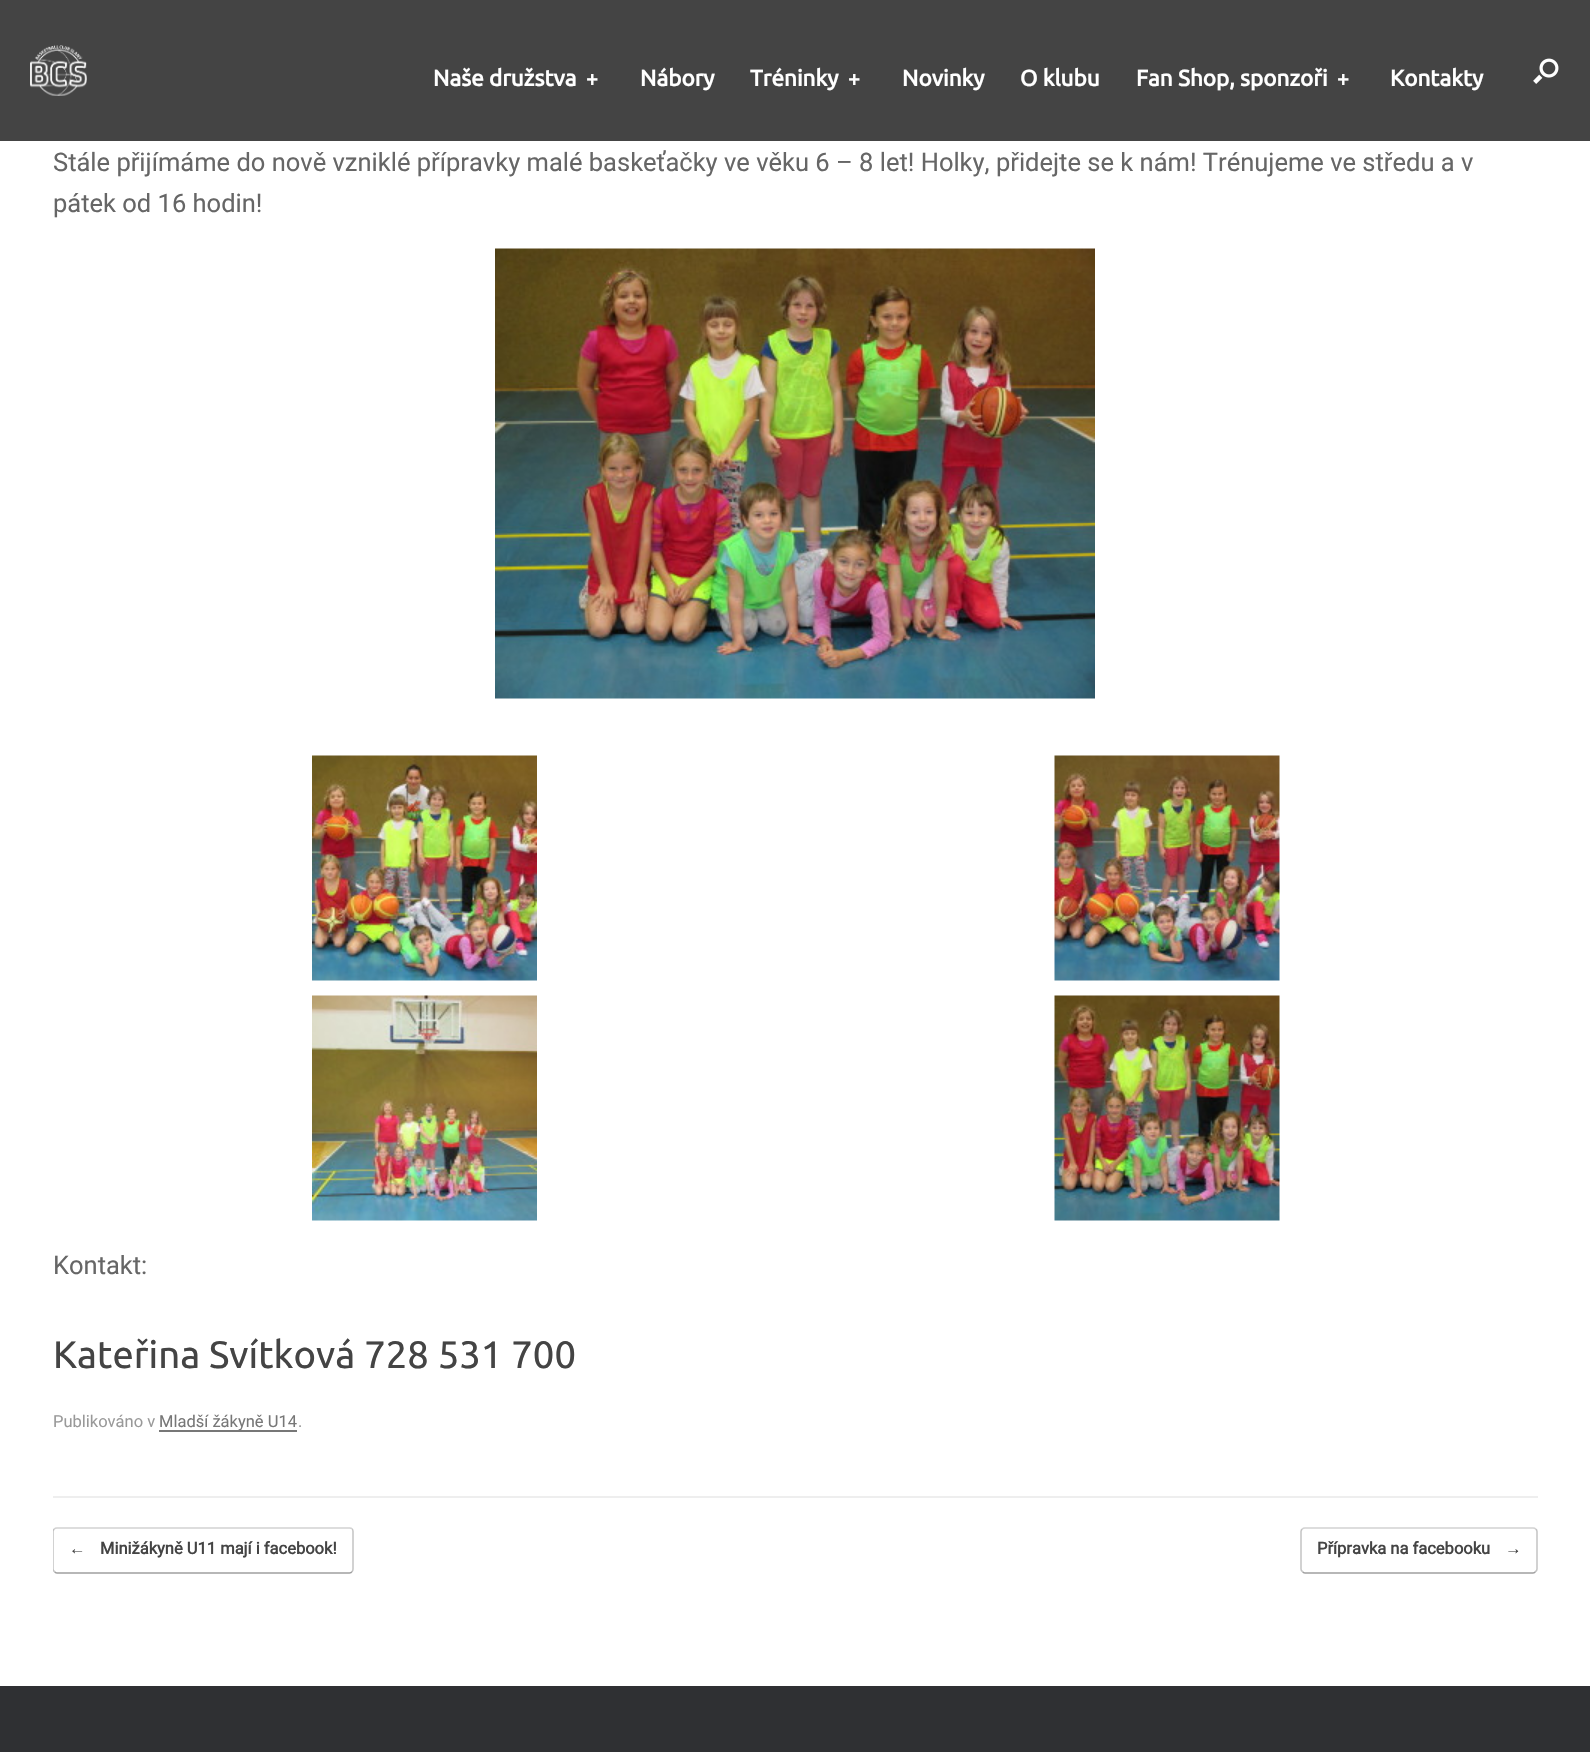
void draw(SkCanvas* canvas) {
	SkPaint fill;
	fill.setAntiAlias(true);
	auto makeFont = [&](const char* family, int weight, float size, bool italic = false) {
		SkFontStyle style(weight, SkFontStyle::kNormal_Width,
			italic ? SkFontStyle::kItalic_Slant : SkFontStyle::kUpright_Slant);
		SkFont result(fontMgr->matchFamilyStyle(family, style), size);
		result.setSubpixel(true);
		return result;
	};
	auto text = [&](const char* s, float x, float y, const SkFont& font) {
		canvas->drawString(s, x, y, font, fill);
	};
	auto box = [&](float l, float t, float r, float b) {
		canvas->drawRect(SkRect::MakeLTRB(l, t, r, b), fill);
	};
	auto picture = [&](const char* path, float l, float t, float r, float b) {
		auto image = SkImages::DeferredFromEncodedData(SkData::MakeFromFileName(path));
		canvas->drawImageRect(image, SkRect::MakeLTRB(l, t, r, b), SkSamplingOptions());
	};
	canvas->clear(0xFF2F3033);
	fill.setColor(0xFF444444);
	box(0, 0, 1590, 141);
	picture("image0.png", 30, 45, 87, 96);
	picture("image1.png", 1533, 58, 1559, 84);
	fill.setColor(0xFFFFFFFF);
	box(0, 141, 1590, 1686);
	fill.setColor(0xFFEEEEEE);
	box(53, 1496, 1538, 1498);
	picture("image2.png", 495, 248, 1095, 699);
	picture("image3.png", 312, 755, 537, 981);
	picture("image4.png", 1054, 755, 1280, 981);
	picture("image5.png", 312, 995, 537, 1221);
	picture("image6.png", 1054, 995, 1280, 1221);
	fill.setColor(0xFF777777);
	box(159, 1430, 297, 1432);
	fill.setStyle(SkPaint::kStroke_Style);
	fill.setStrokeWidth(1.5f);
	fill.setColor(0xFFD2D2D2);
	canvas->drawPath(SkPathBuilder().moveTo(54.5f, 1529).cubicTo(55, 1528, 56, 1528, 57, 1528).lineTo(349.5f, 1528).cubicTo(350.5f, 1528, 351.5f, 1528, 352, 1529).detach(), fill);
	fill.setColor(0xFFC3C3C3);
	canvas->drawPath(SkPathBuilder().moveTo(352, 1529).cubicTo(353, 1529.5f, 353, 1530.5f, 353, 1531.5f).lineTo(353, 1569).cubicTo(353, 1570, 353, 1571, 352, 1571.5f).detach(), fill);
	fill.setColor(0xFF9F9F9F);
	canvas->drawPath(SkPathBuilder().moveTo(352, 1571.5f).cubicTo(351.5f, 1572.5f, 350.5f, 1573, 349.5f, 1573).lineTo(57, 1573).cubicTo(56, 1573, 55, 1572.5f, 54.5f, 1571.5f).detach(), fill);
	canvas->save();
	canvas->clipRect(SkRect::MakeLTRB(53, 1527, 1538, 1574));
	fill.setColor(0xFFC3C3C3);
	canvas->drawPath(SkPathBuilder().moveTo(54.5f, 1571.5f).cubicTo(53.5f, 1571, 53, 1570, 53, 1569).lineTo(53, 1531.5f).cubicTo(53, 1530.5f, 53.5f, 1529.5f, 54.5f, 1529).detach(), fill);
	canvas->restore();
	fill.setColor(0xFFD2D2D2);
	canvas->drawPath(SkPathBuilder().moveTo(1302.5f, 1529).cubicTo(1303, 1528, 1304, 1528, 1305, 1528).lineTo(1533, 1528).cubicTo(1534, 1528, 1535, 1528, 1535.5f, 1529).detach(), fill);
	fill.setColor(0xFFC3C3C3);
	canvas->drawPath(SkPathBuilder().moveTo(1535.5f, 1529).cubicTo(1536.5f, 1529.5f, 1537, 1530.5f, 1537, 1531.5f).lineTo(1537, 1569).cubicTo(1537, 1570, 1536.5f, 1571, 1535.5f, 1571.5f).detach(), fill);
	fill.setColor(0xFF9F9F9F);
	canvas->drawPath(SkPathBuilder().moveTo(1535.5f, 1571.5f).cubicTo(1535, 1572.5f, 1534, 1573, 1533, 1573).lineTo(1305, 1573).cubicTo(1304, 1573, 1303, 1572.5f, 1302.5f, 1571.5f).detach(), fill);
	fill.setColor(0xFFC3C3C3);
	canvas->drawPath(SkPathBuilder().moveTo(1302.5f, 1571.5f).cubicTo(1301.5f, 1571, 1301, 1570, 1301, 1569).lineTo(1301, 1531.5f).cubicTo(1301, 1530.5f, 1301.5f, 1529.5f, 1302.5f, 1529).detach(), fill);
	auto font1 = makeFont("Ubuntu", 700, 22.5f);
	fill.setStyle(SkPaint::kFill_Style);
	fill.setColor(0xFFFFFFFF);
	text("Naše družstva", 433, 86, font1);
	auto font2 = makeFont("Ubuntu", 700, 21);
	text("+", 586, 86, font2);
	text("Nábory", 640, 86, font1);
	text("Tréninky", 750, 86, font1);
	text("+", 848, 86, font2);
	text("Novinky", 902, 86, font1);
	text("O klubu", 1020, 86, font1);
	text("Fan Shop, sponzoři", 1136, 86, font1);
	text("+", 1337, 86, font2);
	text("Kontakty", 1390, 86, font1);
	auto font3 = makeFont("Roboto", 400, 25.5f);
	fill.setColor(0xFF666666);
	text("Stále přijímáme do nově vzniklé přípravky malé baskeťačky ve věku 6 – 8 let! Holky, přidejte se k nám! Trénujeme ve středu a v", 53, 171, font3);
	text("pátek od 16 hodin!", 53, 212, font3);
	text("Kontakt:", 53, 1274, font3);
	auto font4 = makeFont("Ubuntu", 400, 38.25f);
	fill.setColor(0xFF444444);
	text("Kateřina Svítková 728 531 700", 53, 1368, font4);
	auto font5 = makeFont("Roboto", 400, 16.5f);
	fill.setColor(0xFF999999);
	text("Publikováno v", 53, 1427, font5);
	fill.setColor(0xFF777777);
	text("Mladší žákyně U14", 159, 1427, font5);
	fill.setColor(0xFF999999);
	text(".", 298, 1427, font5);
	auto font6 = makeFont("Liberation Serif", 700, 16.5f);
	fill.setColor(0xFF444444);
	text("←", 69, 1554, font6);
	auto font7 = makeFont("Roboto", 700, 16.5f);
	text("Minižákyně U11 mají i facebook!", 100, 1554, font7);
	text("Přípravka na facebooku", 1317, 1554, font7);
	text("→", 1505, 1554, font6);
}
